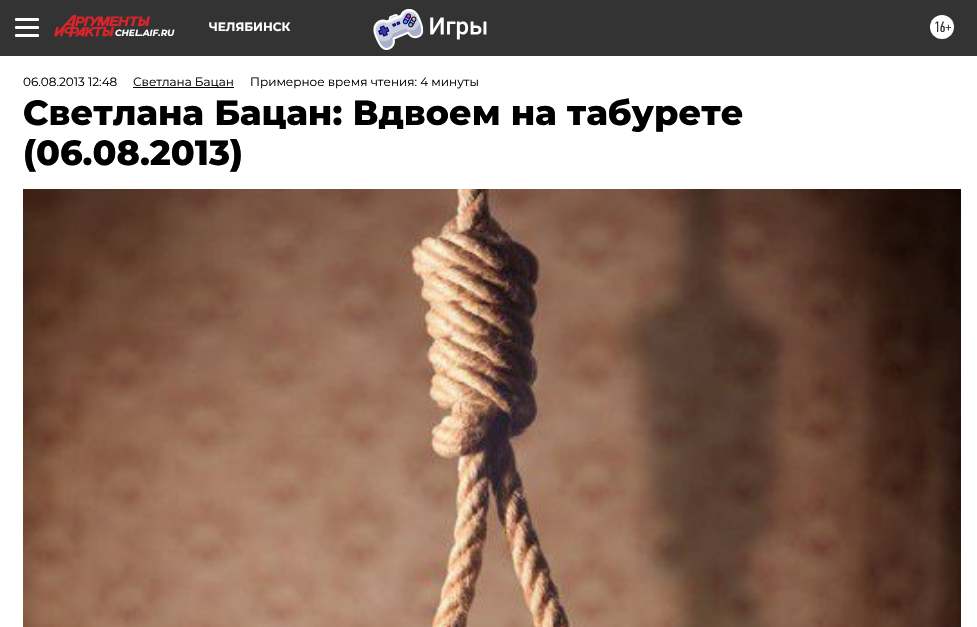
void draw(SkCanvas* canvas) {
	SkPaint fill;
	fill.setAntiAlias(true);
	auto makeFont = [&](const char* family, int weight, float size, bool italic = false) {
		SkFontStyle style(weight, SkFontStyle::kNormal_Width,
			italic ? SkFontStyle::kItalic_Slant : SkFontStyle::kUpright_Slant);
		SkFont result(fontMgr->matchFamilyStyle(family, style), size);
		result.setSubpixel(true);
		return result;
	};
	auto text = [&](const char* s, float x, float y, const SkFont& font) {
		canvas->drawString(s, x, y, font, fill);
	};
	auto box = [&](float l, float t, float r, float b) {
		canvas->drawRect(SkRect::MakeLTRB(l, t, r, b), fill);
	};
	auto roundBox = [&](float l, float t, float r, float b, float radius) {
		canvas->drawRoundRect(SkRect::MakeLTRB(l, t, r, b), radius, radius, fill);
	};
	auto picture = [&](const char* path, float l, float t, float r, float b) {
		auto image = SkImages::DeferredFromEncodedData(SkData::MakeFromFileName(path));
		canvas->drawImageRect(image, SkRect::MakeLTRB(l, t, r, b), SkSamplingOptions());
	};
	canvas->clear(0xFFFFFFFF);
	fill.setColor(0xFF333333);
	box(0, 0, 977, 56);
	fill.setColor(0xFFFFFFFF);
	roundBox(15, 18, 39, 21, 1);
	roundBox(15, 26, 39, 29, 1);
	roundBox(15, 34, 39, 37, 1);
	picture("image0.png", 373, 9, 487, 50);
	canvas->drawCircle(942, 27, 12, fill);
	picture("image1.png", 54, 15, 150, 37);
	fill.setColor(0xFF000000);
	box(133, 87, 234, 88);
	picture("image2.png", 23, 189, 961, 627);
	auto font1 = makeFont("Montserrat", 700, 12);
	fill.setColor(0xFFFFFFFF);
	text("ЧЕЛЯБИНСК", 209, 31, font1);
	auto font2 = makeFont("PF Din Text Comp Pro", 400, 15);
	fill.setColor(0xFF333333);
	text("16+", 934, 32, font2);
	auto font3 = makeFont("Montserrat", 700, 9, true);
	fill.setColor(0xFFFFFFFF);
	text("CHEL.AIF.RU", 115, 36, font3);
	auto font4 = makeFont("Montserrat", 400, 12);
	fill.setColor(0xFF000000);
	text("06.08.2013 12:48", 23, 86, font4);
	text("Светлана Бацан", 133, 86, font4);
	text("Примерное время чтения: 4 минуты", 250, 86, font4);
	auto font5 = makeFont("Montserrat", 800, 35);
	text("Светлана Бацан: Вдвоем на табурете", 23, 125, font5);
	text("(06.08.2013)", 23, 165, font5);
}
